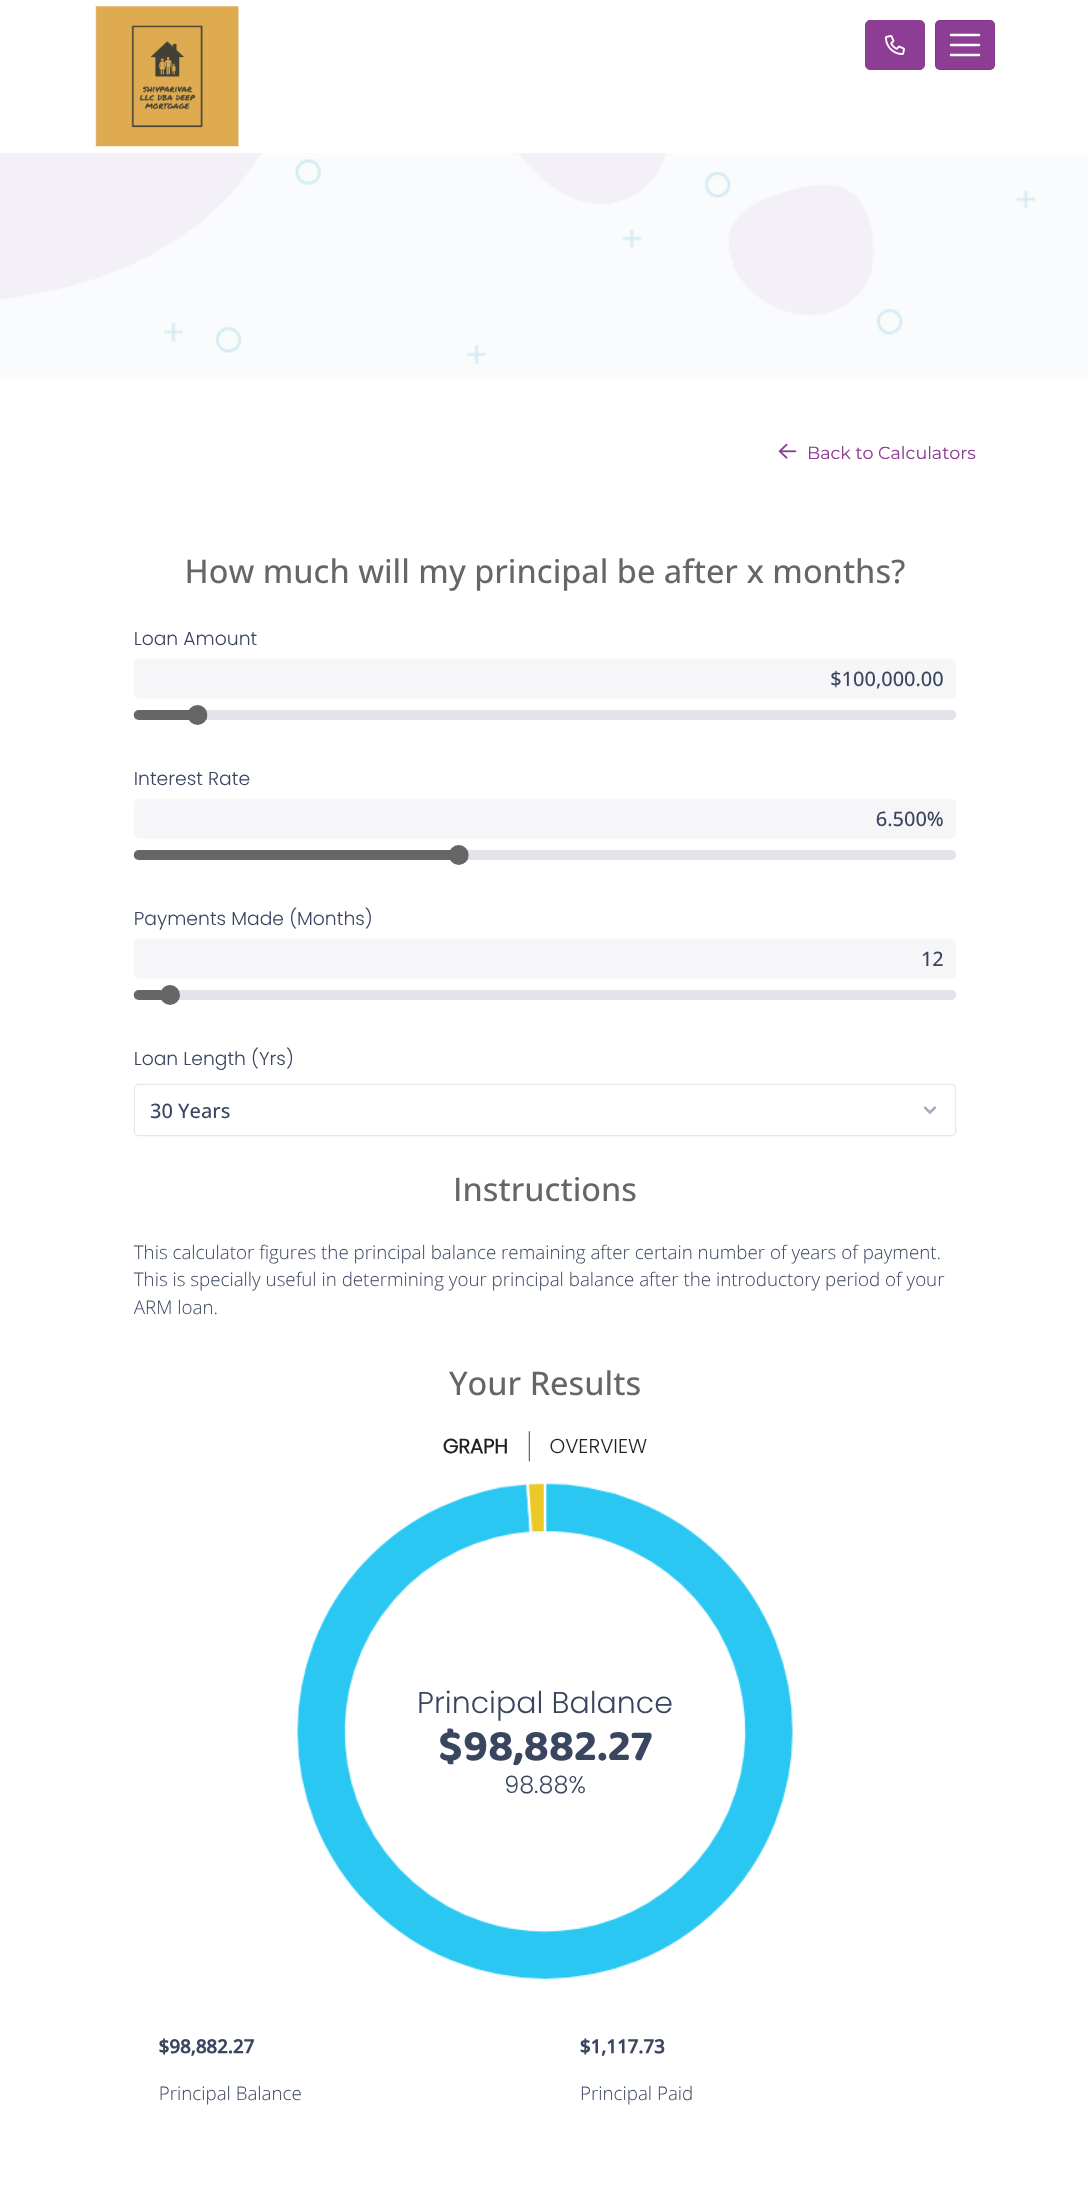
void draw(SkCanvas* canvas) {
	SkPaint fill;
	fill.setAntiAlias(true);
	auto makeFont = [&](const char* family, int weight, float size, bool italic = false) {
		SkFontStyle style(weight, SkFontStyle::kNormal_Width,
			italic ? SkFontStyle::kItalic_Slant : SkFontStyle::kUpright_Slant);
		SkFont result(fontMgr->matchFamilyStyle(family, style), size);
		result.setSubpixel(true);
		return result;
	};
	auto text = [&](const char* s, float x, float y, const SkFont& font) {
		canvas->drawString(s, x, y, font, fill);
	};
	auto roundBox = [&](float l, float t, float r, float b, float radius) {
		canvas->drawRoundRect(SkRect::MakeLTRB(l, t, r, b), radius, radius, fill);
	};
	auto picture = [&](const char* path, float l, float t, float r, float b) {
		auto image = SkImages::DeferredFromEncodedData(SkData::MakeFromFileName(path));
		canvas->drawImageRect(image, SkRect::MakeLTRB(l, t, r, b), SkSamplingOptions());
	};
	canvas->clear(0xFFFFFFFF);
	picture("image0.png", 95, 6, 239, 147);
	fill.setColor(0xFF8D3D94);
	canvas->drawRoundRect(SkRect::MakeLTRB(865.5f, 20.5f, 924.5f, 69.5f), 4.5f, 4.5f, fill);
	fill.setStyle(SkPaint::kStroke_Style);
	fill.setStrokeWidth(1);
	canvas->drawRoundRect(SkRect::MakeLTRB(865.5f, 20.5f, 924.5f, 69.5f), 4.5f, 4.5f, fill);
	picture("image1.png", 885, 35, 905, 55);
	fill.setStyle(SkPaint::kFill_Style);
	roundBox(935, 20, 995, 70, 5);
	fill.setStyle(SkPaint::kStroke_Style);
	fill.setColor(0x1A000000);
	canvas->drawRoundRect(SkRect::MakeLTRB(935.5f, 20.5f, 994.5f, 69.5f), 4.5f, 4.5f, fill);
	fill.setStrokeWidth(2.5f);
	fill.setStrokeCap(SkPaint::kRound_Cap);
	fill.setColor(0xFFFFFFFF);
	canvas->drawPath(SkPathBuilder().moveTo(951, 35).lineTo(979, 35).moveTo(951, 45).lineTo(979, 45).moveTo(951, 55).lineTo(979, 55).detach(), fill);
	picture("image2.png", 0, 153, 1088, 377);
	picture("image3.png", 778, 443, 797, 459);
	picture("image4.png", 133, 558, 957, 2105);
	auto font1 = makeFont("Montserrat", 400, 17.5f);
	fill.setStyle(SkPaint::kFill_Style);
	fill.setColor(0xFF8D3D94);
	text("Back to Calculators", 807, 459, font1);
}
